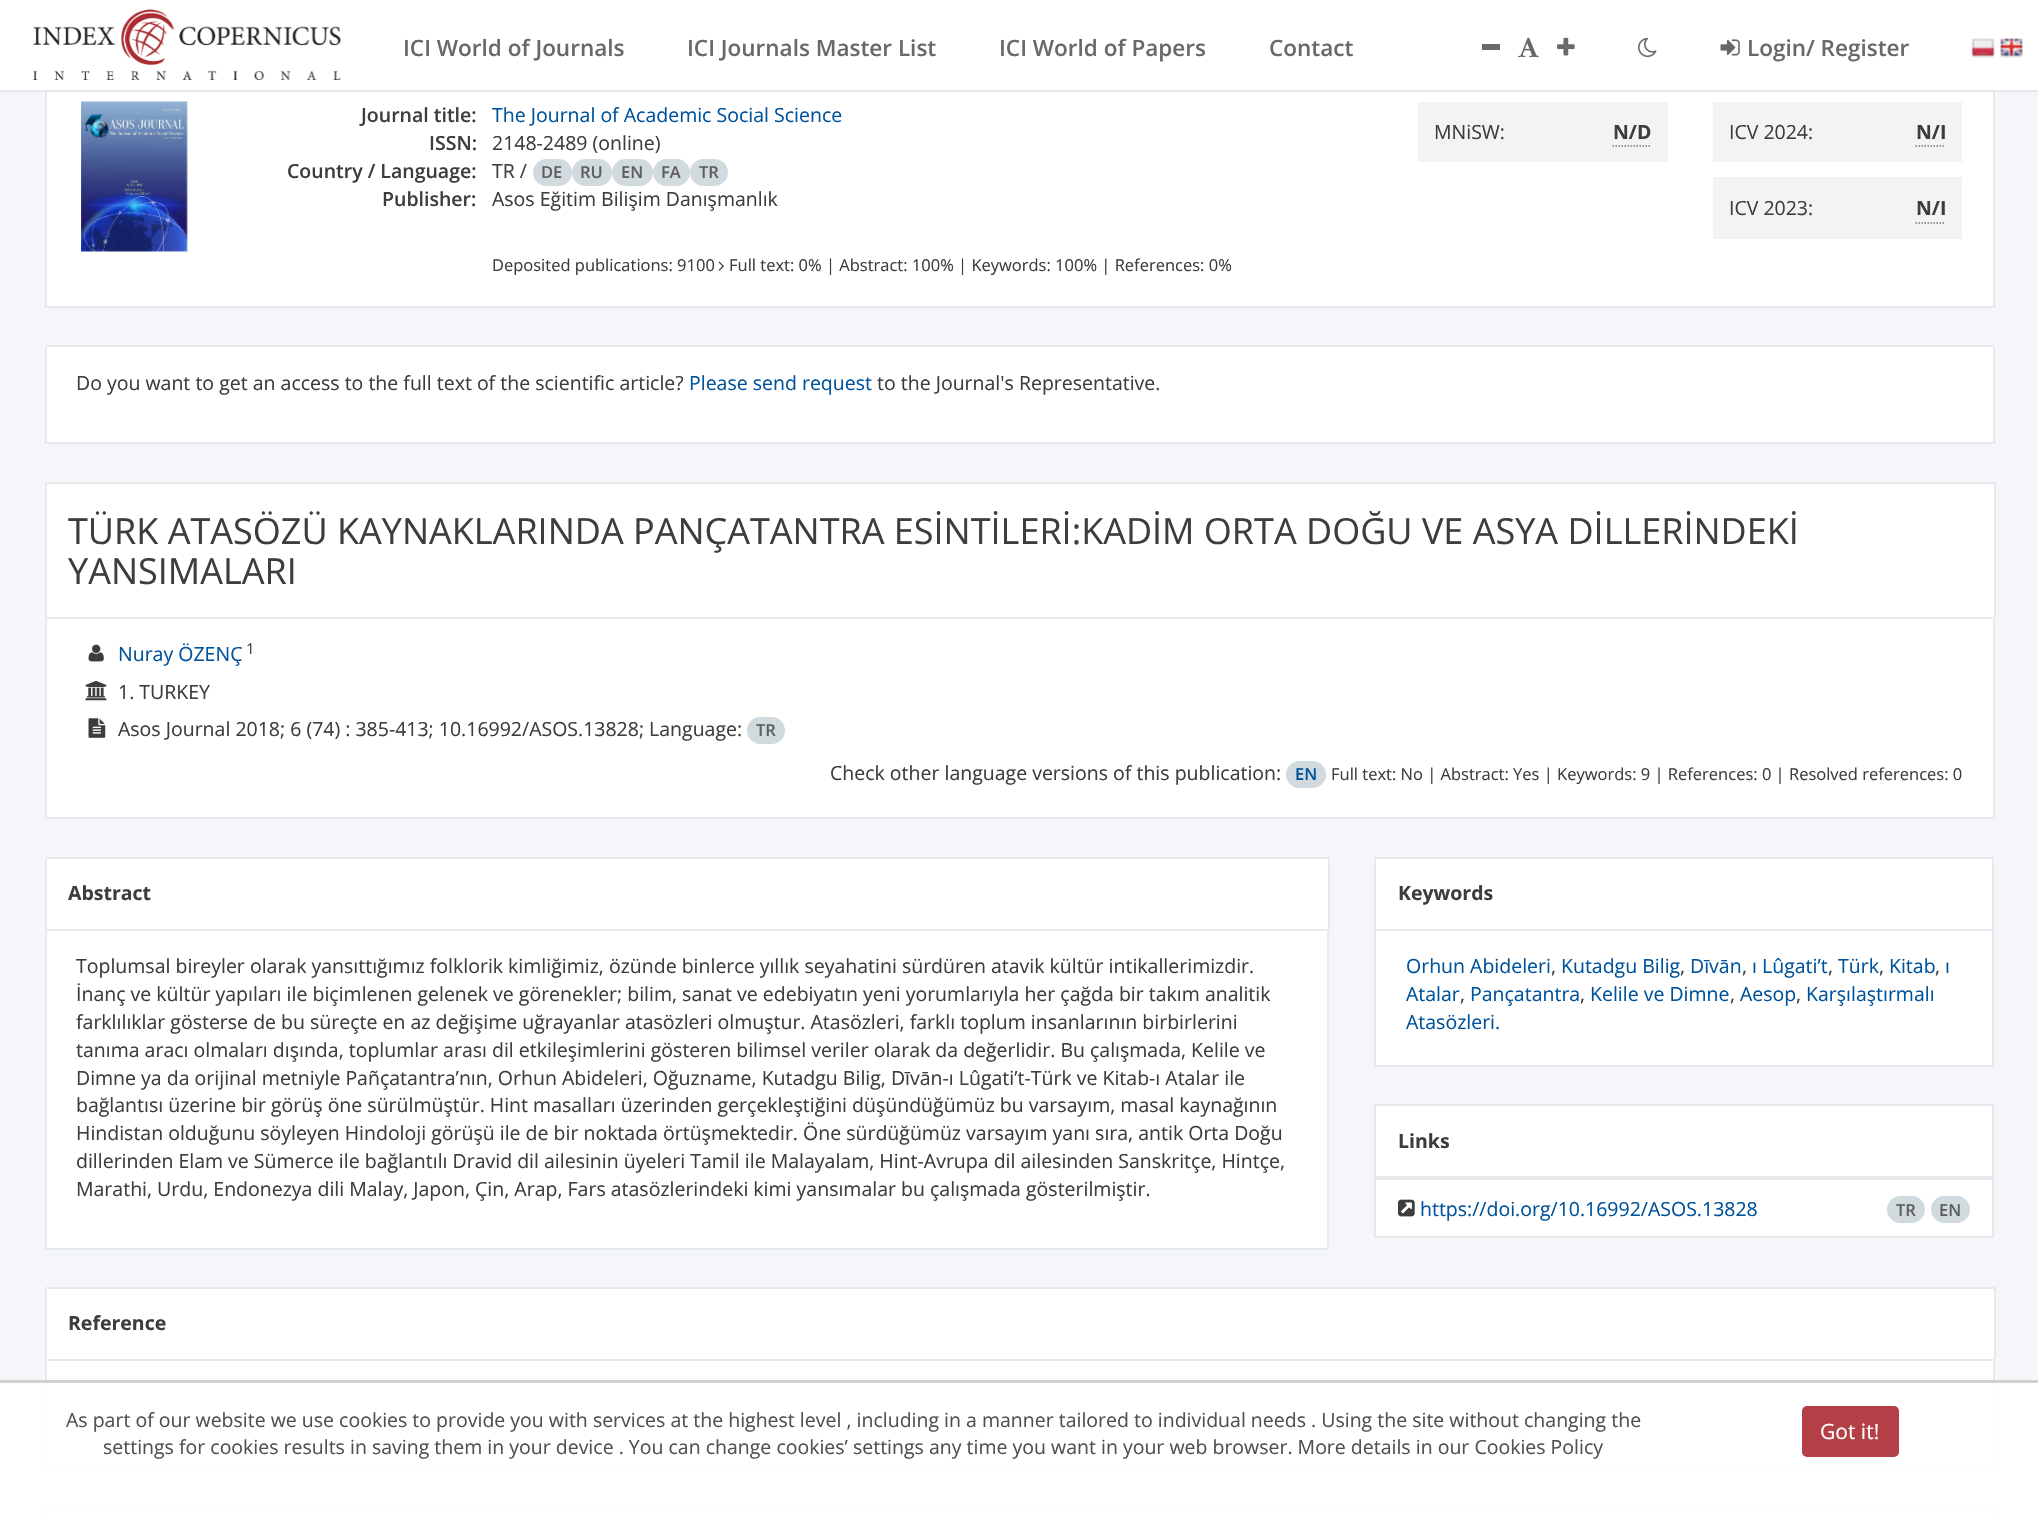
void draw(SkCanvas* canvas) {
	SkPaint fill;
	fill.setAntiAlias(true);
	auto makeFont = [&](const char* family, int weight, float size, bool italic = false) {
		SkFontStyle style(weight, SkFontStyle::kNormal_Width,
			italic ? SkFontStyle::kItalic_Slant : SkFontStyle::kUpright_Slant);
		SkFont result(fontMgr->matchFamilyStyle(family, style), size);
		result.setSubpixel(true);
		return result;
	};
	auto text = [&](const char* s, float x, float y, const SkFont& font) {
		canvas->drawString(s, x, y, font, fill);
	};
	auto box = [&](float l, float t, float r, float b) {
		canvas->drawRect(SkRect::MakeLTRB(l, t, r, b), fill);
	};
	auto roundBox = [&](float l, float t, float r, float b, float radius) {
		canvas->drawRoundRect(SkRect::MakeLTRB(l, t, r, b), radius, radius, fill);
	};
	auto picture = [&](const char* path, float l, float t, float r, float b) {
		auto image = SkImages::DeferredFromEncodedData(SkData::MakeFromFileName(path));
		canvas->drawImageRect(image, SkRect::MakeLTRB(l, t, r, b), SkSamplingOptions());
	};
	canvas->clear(0xFFF4F6FA);
	fill.setColor(0xFFFFFFFF);
	box(47, 92, 1993, 306);
	fill.setStyle(SkPaint::kStroke_Style);
	fill.setStrokeWidth(2);
	fill.setColor(0xFFE7EAEC);
	canvas->drawRect(SkRect::MakeLTRB(46, 79, 1994, 307), fill);
	fill.setStyle(SkPaint::kFill_Style);
	fill.setColor(0xFFFFFFFF);
	box(0, 0, 2038, 90);
	fill.setColor(0xFFE7EAEC);
	box(0, 90, 2038, 92);
	picture("image0.png", 33, 9, 341, 81);
	fill.setColor(0xFF676A6C);
	box(1482, 44, 1500, 50);
	picture("image1.png", 1518, 37, 1539, 58);
	picture("image2.png", 1557, 37, 1575, 56);
	picture("image3.png", 1638, 37, 1657, 58);
	picture("image4.png", 1720, 39, 1740, 56);
	picture("image5.png", 1971, 38, 1995, 58);
	picture("image6.png", 2000, 38, 2023, 58);
	picture("image7.png", 81, 101, 188, 252);
	fill.setColor(0xFFD1DADE);
	roundBox(533, 159, 572, 186, 13.5f);
	roundBox(572, 159, 612, 186, 13.5f);
	roundBox(612, 159, 653, 186, 13.5f);
	roundBox(653, 159, 690, 186, 13.5f);
	roundBox(690, 159, 728, 186, 13.5f);
	fill.setColor(0xFFF3F3F4);
	box(1418, 102, 1668, 162);
	fill.setStyle(SkPaint::kStroke_Style);
	fill.setStrokeWidth(1.5f);
	fill.setColor(0xFF777777);
	fill.setPathEffect(SkDashPathEffect::Make({{1.5f, 1.5f}}, 0));
	canvas->drawPath(SkPathBuilder().moveTo(1612.5f, 146).lineTo(1651.5f, 146).detach(), fill);
	fill.setPathEffect(nullptr);
	fill.setStyle(SkPaint::kFill_Style);
	fill.setColor(0xFFF3F3F4);
	box(1713, 102, 1962, 162);
	fill.setStyle(SkPaint::kStroke_Style);
	fill.setColor(0xFF777777);
	fill.setPathEffect(SkDashPathEffect::Make({{1.5f, 1.5f}}, 0));
	canvas->drawPath(SkPathBuilder().moveTo(1915.5f, 146).lineTo(1945.5f, 146).detach(), fill);
	fill.setPathEffect(nullptr);
	fill.setStyle(SkPaint::kFill_Style);
	fill.setColor(0xFFF3F3F4);
	box(1713, 177, 1962, 239);
	fill.setStyle(SkPaint::kStroke_Style);
	fill.setColor(0xFF777777);
	fill.setPathEffect(SkDashPathEffect::Make({{1.5f, 1.5f}}, 0));
	canvas->drawPath(SkPathBuilder().moveTo(1915.5f, 223).lineTo(1945.5f, 223).detach(), fill);
	fill.setPathEffect(nullptr);
	picture("image8.png", 718, 261, 724, 271);
	fill.setStyle(SkPaint::kFill_Style);
	fill.setColor(0xFFFFFFFF);
	canvas->drawRect(SkRect::MakeLTRB(46, 346, 1994, 443), fill);
	fill.setStyle(SkPaint::kStroke_Style);
	fill.setStrokeWidth(2);
	fill.setColor(0xFFE7EAEC);
	canvas->drawRect(SkRect::MakeLTRB(46, 346, 1994, 443), fill);
	fill.setStyle(SkPaint::kFill_Style);
	fill.setColor(0xFFFFFFFF);
	box(47, 484, 1994, 617);
	fill.setColor(0xFFE7EAEC);
	box(45, 482, 1995, 484);
	box(1994, 482, 1996, 617);
	box(45, 482, 47, 617);
	fill.setColor(0xFFFFFFFF);
	canvas->drawRect(SkRect::MakeLTRB(46, 618, 1994, 818), fill);
	fill.setStyle(SkPaint::kStroke_Style);
	fill.setColor(0xFFE7EAEC);
	canvas->drawRect(SkRect::MakeLTRB(46, 618, 1994, 818), fill);
	picture("image9.png", 88, 644, 104, 662);
	picture("image10.png", 85, 680, 107, 701);
	picture("image11.png", 88, 718, 106, 738);
	fill.setStyle(SkPaint::kFill_Style);
	fill.setColor(0xFFD1DADE);
	roundBox(747, 717, 785, 744, 13.5f);
	roundBox(1286, 761, 1326, 788, 13.5f);
	fill.setColor(0xFFFFFFFF);
	box(47, 859, 1328, 929);
	fill.setColor(0xFFE7EAEC);
	box(45, 857, 1329, 859);
	box(1328, 857, 1330, 929);
	box(45, 857, 47, 929);
	fill.setColor(0xFFFFFFFF);
	canvas->drawRect(SkRect::MakeLTRB(46, 930, 1328, 1249), fill);
	fill.setStyle(SkPaint::kStroke_Style);
	fill.setColor(0xFFE7EAEC);
	canvas->drawRect(SkRect::MakeLTRB(46, 930, 1328, 1249), fill);
	fill.setStyle(SkPaint::kFill_Style);
	fill.setColor(0xFFFFFFFF);
	box(1376, 859, 1992, 929);
	fill.setColor(0xFFE7EAEC);
	box(1374, 857, 1994, 859);
	box(1992, 857, 1994, 929);
	box(1374, 857, 1376, 929);
	fill.setColor(0xFFFFFFFF);
	canvas->drawRect(SkRect::MakeLTRB(1375, 930, 1993, 1066), fill);
	fill.setStyle(SkPaint::kStroke_Style);
	fill.setColor(0xFFE7EAEC);
	canvas->drawRect(SkRect::MakeLTRB(1375, 930, 1993, 1066), fill);
	fill.setStyle(SkPaint::kFill_Style);
	fill.setColor(0xFFFFFFFF);
	box(1376, 1106, 1992, 1176);
	fill.setColor(0xFFE7EAEC);
	box(1374, 1104, 1994, 1106);
	box(1992, 1104, 1994, 1176);
	box(1374, 1104, 1376, 1176);
	fill.setColor(0xFFFFFFFF);
	box(1376, 1180, 1992, 1236);
	fill.setStyle(SkPaint::kStroke_Style);
	fill.setColor(0xFFE7EAEC);
	canvas->drawRect(SkRect::MakeLTRB(1375, 1177, 1993, 1237), fill);
	fill.setStyle(SkPaint::kFill_Style);
	box(1376, 1178, 1992, 1180);
	picture("image12.png", 1398, 1199, 1415, 1217);
	fill.setColor(0xFFD1DADE);
	roundBox(1887, 1196, 1925, 1223, 13.5f);
	roundBox(1931, 1196, 1970, 1223, 13.5f);
	fill.setColor(0xFFFFFFFF);
	box(47, 1289, 1994, 1359);
	fill.setColor(0xFFE7EAEC);
	box(45, 1287, 1995, 1289);
	box(1994, 1287, 1996, 1359);
	box(45, 1287, 47, 1359);
	fill.setColor(0xFFFFFFFF);
	canvas->drawRect(SkRect::MakeLTRB(46, 1360, 1994, 1468), fill);
	fill.setStyle(SkPaint::kStroke_Style);
	fill.setColor(0xFFE7EAEC);
	canvas->drawRect(SkRect::MakeLTRB(46, 1360, 1994, 1468), fill);
	fill.setStyle(SkPaint::kFill_Style);
	fill.setColor(0xFFFFFFFF);
	box(47, 1508, 1994, 1518);
	fill.setColor(0xFFE7EAEC);
	box(45, 1506, 1995, 1508);
	box(1994, 1506, 1996, 1518);
	box(45, 1506, 47, 1518);
	fill.setColor(0xE6FFFFFF);
	box(0, 1383, 2038, 1518);
	fill.setColor(0xFFD1D1D1);
	box(0, 1380, 2038, 1383);
	fill.setColor(0xFFB34046);
	roundBox(1802, 1406, 1899, 1457, 5);
	auto font1 = makeFont("Open Sans", 600, 22.5f);
	fill.setColor(0xFF676A6C);
	text("ICI World of Journals", 403, 56, font1);
	text("ICI Journals Master List", 687, 56, font1);
	text("ICI World of Papers", 999, 56, font1);
	text("Contact", 1269, 56, font1);
	text("Login/ Register", 1747, 56, font1);
	auto font2 = makeFont("Open Sans", 600, 19.5f);
	fill.setColor(0xFF3D3D3D);
	text("Journal title:", 361, 122, font2);
	auto font3 = makeFont("Open Sans", 400, 19.5f);
	fill.setColor(0xFF00539B);
	text("The Journal of Academic Social Science", 492, 122, font3);
	fill.setColor(0xFF3D3D3D);
	text("ISSN:", 429, 150, font2);
	text("2148-2489 (online)", 492, 150, font3);
	text("Country / Language:", 287, 178, font2);
	text("TR /", 492, 178, font3);
	auto font4 = makeFont("Open Sans", 600, 16.5f);
	fill.setColor(0xFF5E5E5E);
	text("DE", 541, 178, font4);
	text("RU", 580, 178, font4);
	text("EN", 621, 178, font4);
	text("FA", 661, 178, font4);
	text("TR", 699, 178, font4);
	fill.setColor(0xFF3D3D3D);
	text("Publisher:", 382, 206, font2);
	text("Asos Eğitim Bilişim Danışmanlık", 492, 206, font3);
	text("MNiSW:", 1434, 139, font3);
	auto font5 = makeFont("Open Sans", 700, 19.5f);
	text("N/D", 1613, 139, font5);
	text("ICV 2024:", 1729, 139, font3);
	text("N/I", 1916, 139, font5);
	text("ICV 2023:", 1729, 215, font3);
	text("N/I", 1916, 215, font5);
	auto font6 = makeFont("Open Sans", 400, 16.5f);
	text("Deposited publications: 9100", 492, 271, font6);
	text("Full text: 0% | Abstract: 100% | Keywords: 100% | References: 0%", 729, 271, font6);
	text("Do you want to get an access to the full text of the scientific article?", 76, 390, font3);
	fill.setColor(0xFF00539B);
	text("Please send request", 689, 390, font3);
	fill.setColor(0xFF3D3D3D);
	text("to the Journal's Representative.", 877, 390, font3);
	auto font7 = makeFont("Open Sans", 400, 36);
	text("TÜRK ATASÖZÜ KAYNAKLARINDA PANÇATANTRA ESİNTİLERİ:KADİM ORTA DOĞU VE ASYA DİLLERİNDEKİ", 68, 544, font7);
	text("YANSIMALARI", 68, 584, font7);
	fill.setColor(0xFF00539B);
	text("Nuray ÖZENÇ", 118, 661, font3);
	auto font8 = makeFont("Open Sans", 400, 15);
	fill.setColor(0xFF3D3D3D);
	text("1", 246, 654, font8);
	text("1. TURKEY", 118, 699, font3);
	text("Asos Journal 2018; 6 (74) : 385-413; 10.16992/ASOS.13828; Language:", 118, 736, font3);
	fill.setColor(0xFF5E5E5E);
	text("TR", 756, 736, font4);
	fill.setColor(0xFF3D3D3D);
	text("Check other language versions of this publication:", 830, 780, font3);
	fill.setColor(0xFF00539B);
	text("EN", 1295, 780, font4);
	fill.setColor(0xFF3D3D3D);
	text("Full text: No | Abstract: Yes | Keywords: 9 | References: 0 | Resolved references: 0", 1331, 780, font6);
	text("Abstract", 68, 900, font5);
	text("Toplumsal bireyler olarak yansıttığımız folklorik kimliğimiz, özünde binlerce yıllık seyahatini sürdüren atavik kültür intikallerimizdir.", 76, 973, font3);
	text("İnanç ve kültür yapıları ile biçimlenen gelenek ve görenekler; bilim, sanat ve edebiyatın yeni yorumlarıyla her çağda bir takım analitik", 76, 1001, font3);
	text("farklılıklar gösterse de bu süreçte en az değişime uğrayanlar atasözleri olmuştur. Atasözleri, farklı toplum insanlarının birbirlerini", 76, 1029, font3);
	text("tanıma aracı olmaları dışında, toplumlar arası dil etkileşimlerini gösteren bilimsel veriler olarak da değerlidir. Bu çalışmada, Kelile ve", 76, 1057, font3);
	text("Dimne ya da orijinal metniyle Pañçatantra’nın, Orhun Abideleri, Oğuzname, Kutadgu Bilig, Dīvān-ı Lûgati’t-Türk ve Kitab-ı Atalar ile", 76, 1085, font3);
	text("bağlantısı üzerine bir görüş öne sürülmüştür. Hint masalları üzerinden gerçekleştiğini düşündüğümüz bu varsayım, masal kaynağının", 76, 1112, font3);
	text("Hindistan olduğunu söyleyen Hindoloji görüşü ile de bir noktada örtüşmektedir. Öne sürdüğümüz varsayım yanı sıra, antik Orta Doğu", 76, 1140, font3);
	text("dillerinden Elam ve Sümerce ile bağlantılı Dravid dil ailesinin üyeleri Tamil ile Malayalam, Hint-Avrupa dil ailesinden Sanskritçe, Hintçe,", 76, 1168, font3);
	text("Marathi, Urdu, Endonezya dili Malay, Japon, Çin, Arap, Fars atasözlerindeki kimi yansımalar bu çalışmada gösterilmiştir.", 76, 1196, font3);
	text("Keywords", 1398, 900, font5);
	fill.setColor(0xFF00539B);
	text("Orhun Abideleri", 1406, 973, font3);
	fill.setColor(0xFF3D3D3D);
	text(",", 1551, 973, font3);
	fill.setColor(0xFF00539B);
	text("Kutadgu Bilig", 1561, 973, font3);
	fill.setColor(0xFF3D3D3D);
	text(",", 1680, 973, font3);
	fill.setColor(0xFF00539B);
	text("Dīvān", 1690, 973, font3);
	fill.setColor(0xFF3D3D3D);
	text(",", 1742, 973, font3);
	fill.setColor(0xFF00539B);
	text("ı Lûgati’t", 1752, 973, font3);
	fill.setColor(0xFF3D3D3D);
	text(",", 1828, 973, font3);
	fill.setColor(0xFF00539B);
	text("Türk", 1838, 973, font3);
	fill.setColor(0xFF3D3D3D);
	text(",", 1879, 973, font3);
	fill.setColor(0xFF00539B);
	text("Kitab", 1889, 973, font3);
	fill.setColor(0xFF3D3D3D);
	text(",", 1935, 973, font3);
	fill.setColor(0xFF00539B);
	text("ı", 1945, 973, font3);
	text("Atalar", 1406, 1001, font3);
	fill.setColor(0xFF3D3D3D);
	text(",", 1460, 1001, font3);
	fill.setColor(0xFF00539B);
	text("Pançatantra", 1470, 1001, font3);
	fill.setColor(0xFF3D3D3D);
	text(",", 1580, 1001, font3);
	fill.setColor(0xFF00539B);
	text("Kelile ve Dimne", 1590, 1001, font3);
	fill.setColor(0xFF3D3D3D);
	text(",", 1730, 1001, font3);
	fill.setColor(0xFF00539B);
	text("Aesop", 1740, 1001, font3);
	fill.setColor(0xFF3D3D3D);
	text(",", 1796, 1001, font3);
	fill.setColor(0xFF00539B);
	text("Karşılaştırmalı", 1806, 1001, font3);
	text("Atasözleri.", 1406, 1029, font3);
	fill.setColor(0xFF3D3D3D);
	text("Links", 1398, 1148, font5);
	fill.setColor(0xFF00539B);
	text("https://doi.org/10.16992/ASOS.13828", 1420, 1216, font3);
	fill.setColor(0xFF5E5E5E);
	text("TR", 1896, 1216, font4);
	text("EN", 1939, 1216, font4);
	fill.setColor(0xFF3D3D3D);
	text("Reference", 68, 1330, font5);
	fill.setColor(0xFF505050);
	text("As part of our website we use cookies to provide you with services at the highest level , including in a manner tailored to individual needs . Using the site without changing the", 66, 1427, font3);
	text("settings for cookies results in saving them in your device . You can change cookies’ settings any time you want in your web browser. More details in our Cookies Policy", 103, 1454, font3);
	auto font9 = makeFont("Open Sans", 400, 21);
	fill.setColor(0xFFFFFFFF);
	text("Got it!", 1820, 1439, font9);
}
